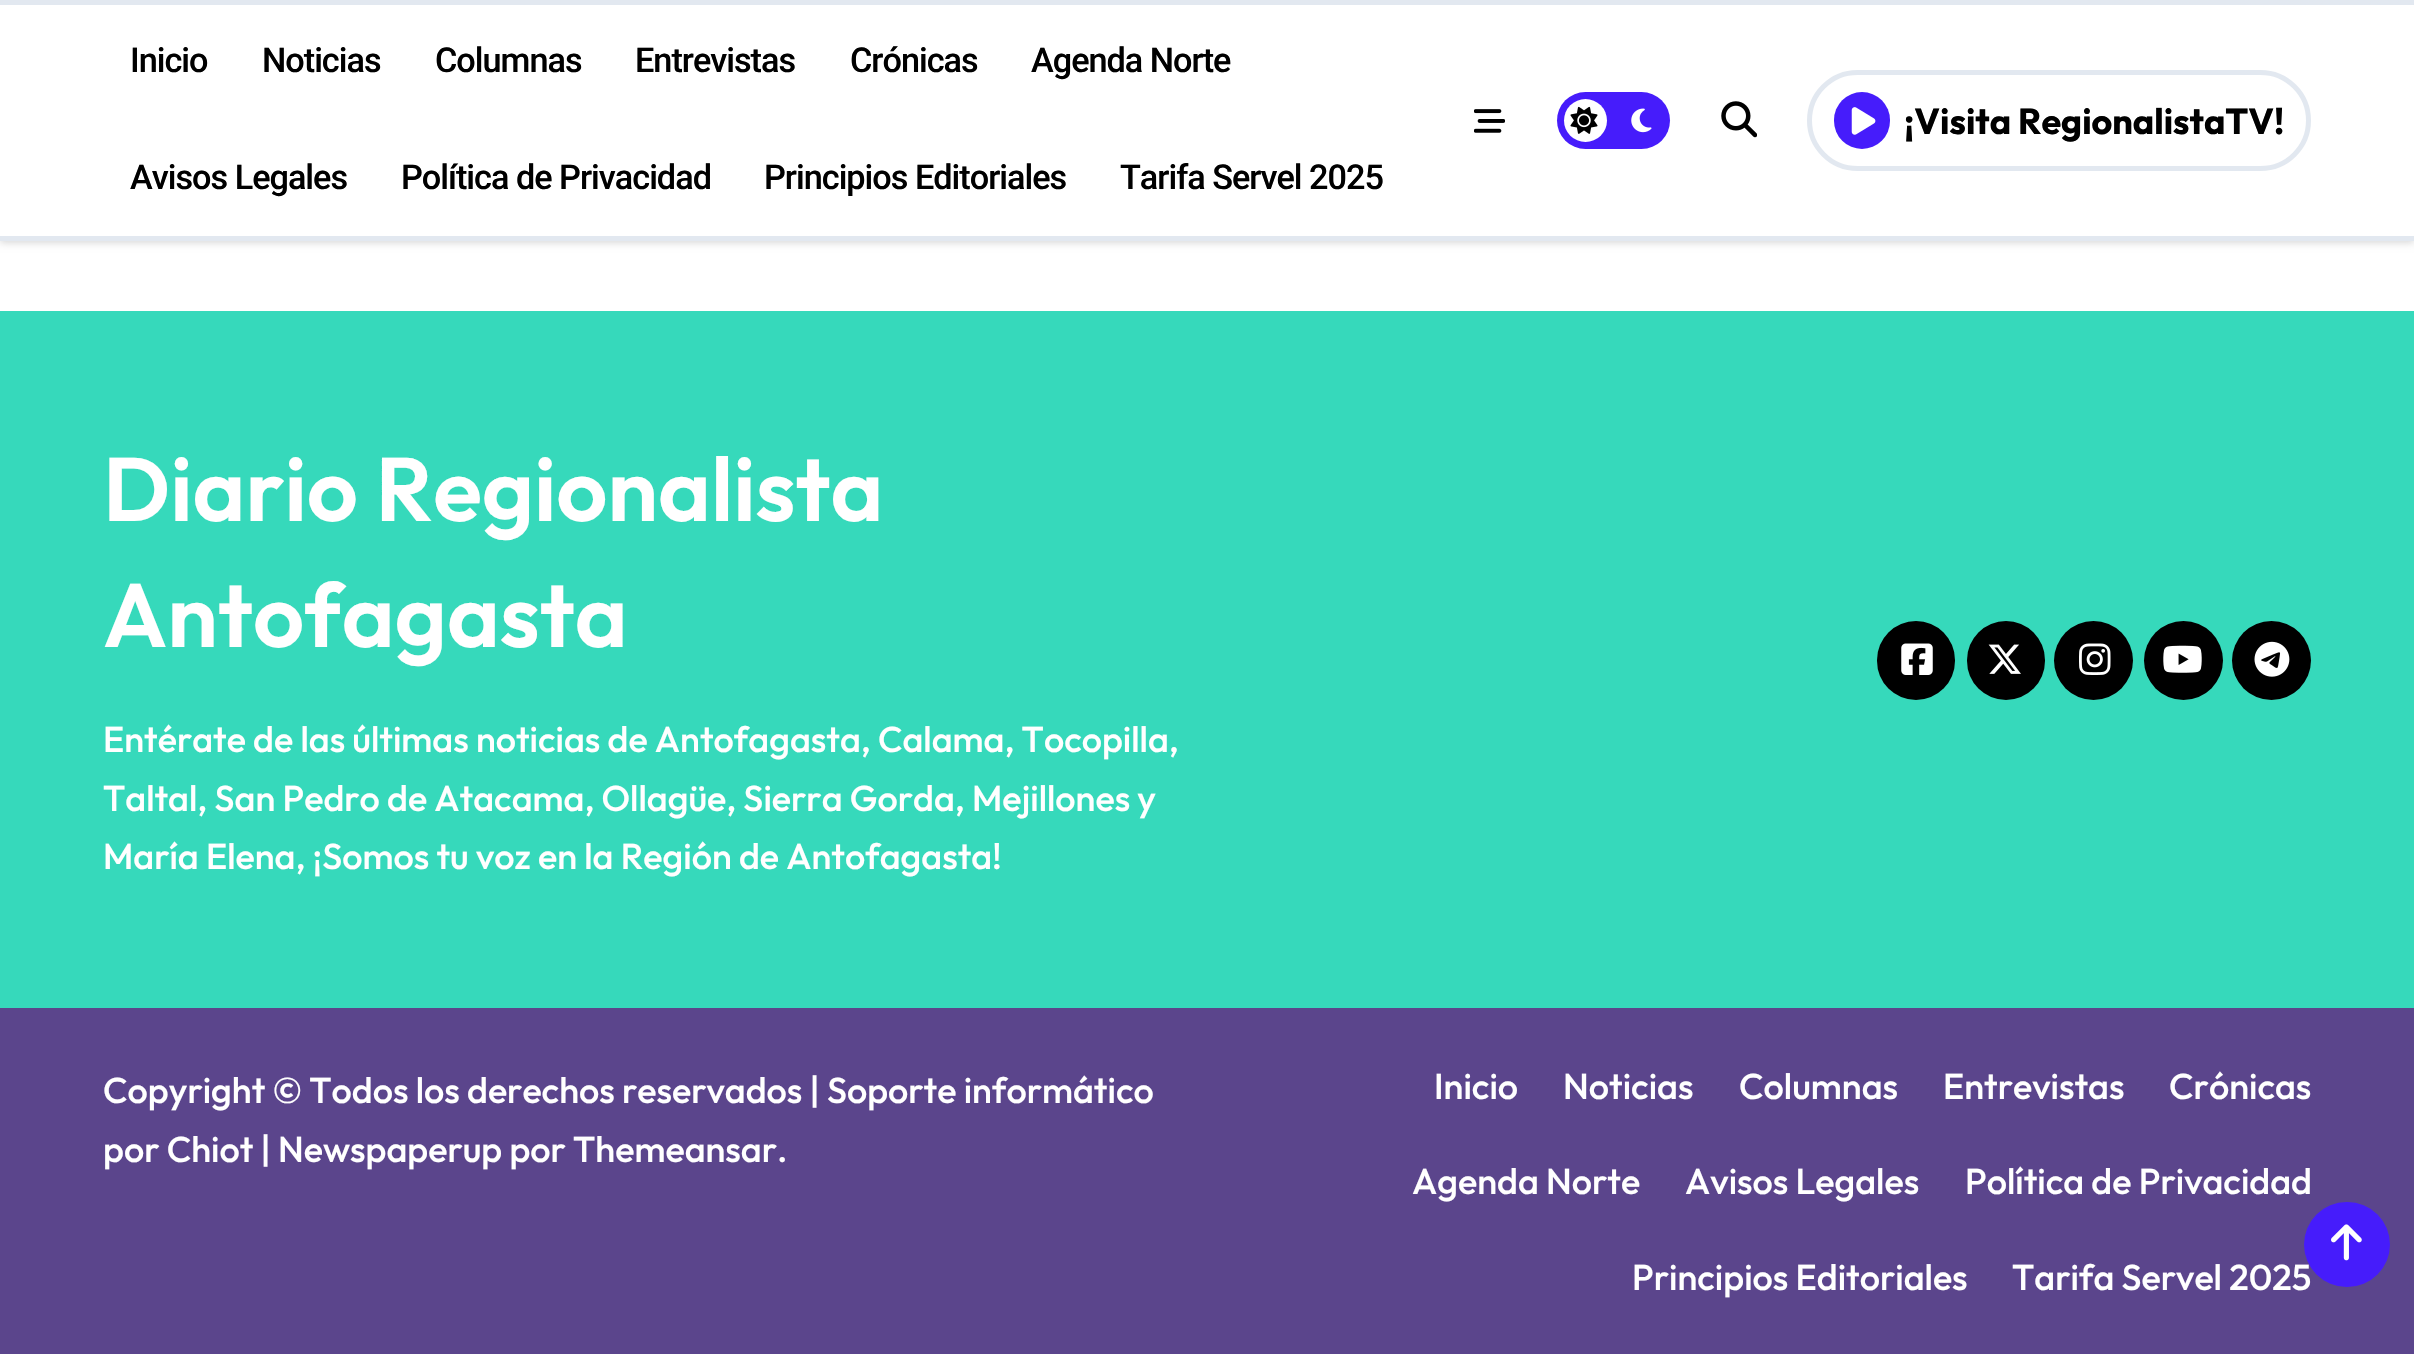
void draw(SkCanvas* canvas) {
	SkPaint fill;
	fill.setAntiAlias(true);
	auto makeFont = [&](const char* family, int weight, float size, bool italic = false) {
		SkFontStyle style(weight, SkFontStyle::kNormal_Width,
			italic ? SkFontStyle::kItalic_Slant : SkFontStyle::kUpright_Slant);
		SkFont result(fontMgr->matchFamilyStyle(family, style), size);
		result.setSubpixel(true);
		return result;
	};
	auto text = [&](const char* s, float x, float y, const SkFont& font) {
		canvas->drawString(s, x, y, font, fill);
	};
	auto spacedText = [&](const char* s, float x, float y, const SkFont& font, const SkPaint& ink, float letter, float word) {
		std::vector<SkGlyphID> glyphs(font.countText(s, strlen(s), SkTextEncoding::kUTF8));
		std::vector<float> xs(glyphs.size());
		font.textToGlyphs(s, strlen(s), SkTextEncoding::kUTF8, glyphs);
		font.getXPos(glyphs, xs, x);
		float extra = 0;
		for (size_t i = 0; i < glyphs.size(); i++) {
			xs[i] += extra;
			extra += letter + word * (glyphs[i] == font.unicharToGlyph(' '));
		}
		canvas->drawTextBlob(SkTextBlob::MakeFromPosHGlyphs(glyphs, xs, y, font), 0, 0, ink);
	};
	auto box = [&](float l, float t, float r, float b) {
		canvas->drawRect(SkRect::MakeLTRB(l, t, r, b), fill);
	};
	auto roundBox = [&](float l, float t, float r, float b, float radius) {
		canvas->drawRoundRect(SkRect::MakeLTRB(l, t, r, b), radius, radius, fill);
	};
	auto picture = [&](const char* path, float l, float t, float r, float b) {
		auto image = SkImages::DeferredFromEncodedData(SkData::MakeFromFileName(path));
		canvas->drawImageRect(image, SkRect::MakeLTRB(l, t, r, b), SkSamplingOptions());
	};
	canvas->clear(0xFFFFFFFF);
	fill.setColor(0x26000000);
	fill.setMaskFilter(SkMaskFilter::MakeBlur(kNormal_SkBlurStyle, 3.5f));
	canvas->drawRect(SkRect::MakeLTRB(0, 2, 2414, 243), fill);
	fill.setMaskFilter(nullptr);
	fill.setColor(0xFFFFFFFF);
	box(0, 5, 2414, 236);
	fill.setColor(0xFFE2E8F0);
	box(0, 0, 2414, 5);
	box(0, 236, 2414, 241);
	picture("image0.png", 1474, 109, 1505, 133);
	fill.setColor(0xFF461CFB);
	roundBox(1557, 92, 1670, 149, 28.5f);
	fill.setColor(0xFFFFFFFF);
	canvas->drawCircle(1585.5f, 120.5f, 21.5f, fill);
	picture("image1.png", 1570, 106, 1598, 134);
	picture("image2.png", 1631, 108, 1652, 133);
	picture("image3.png", 1721, 101, 1757, 138);
	fill.setStyle(SkPaint::kStroke_Style);
	fill.setStrokeWidth(5);
	fill.setColor(0xFFE2E8F0);
	canvas->drawRoundRect(SkRect::MakeLTRB(1809.5f, 72.5f, 2308.5f, 168.5f), 48, 48, fill);
	fill.setStyle(SkPaint::kFill_Style);
	fill.setColor(0xFF461CFB);
	roundBox(1834, 92, 1890, 149, 28);
	picture("image4.png", 1851, 107, 1876, 135);
	fill.setColor(0xFF36D9BB);
	box(0, 311, 2414, 1008);
	fill.setColor(0xFF000000);
	roundBox(1877, 621, 1955, 700, 39);
	picture("image5.png", 1901, 643, 1933, 675);
	roundBox(1967, 621, 2045, 700, 39);
	picture("image6.png", 1988, 644, 2021, 674);
	canvas->drawCircle(2093.5f, 660.5f, 39.5f, fill);
	picture("image7.png", 2079, 643, 2111, 675);
	canvas->drawCircle(2183.5f, 660.5f, 39.5f, fill);
	picture("image8.png", 2163, 645, 2202, 673);
	canvas->drawCircle(2271.5f, 660.5f, 39.5f, fill);
	picture("image9.png", 2254, 641, 2290, 677);
	fill.setColor(0xFF5B458C);
	box(0, 1008, 2414, 1354);
	auto font1 = makeFont("Roboto", 500, 34.25f);
	fill.setColor(0xFF000000);
	spacedText("Inicio", 130, 72, font1, fill, -1, 0);
	spacedText("Noticias", 262, 72, font1, fill, -1, 0);
	spacedText("Columnas", 435, 72, font1, fill, -1, 0);
	spacedText("Entrevistas", 635, 72, font1, fill, -1, 0);
	spacedText("Crónicas", 850, 72, font1, fill, -1, 0);
	spacedText("Agenda Norte", 1031, 72, font1, fill, -1, 0);
	spacedText("Avisos Legales", 130, 189, font1, fill, -1, 0);
	spacedText("Política de Privacidad", 401, 189, font1, fill, -1, 0);
	spacedText("Principios Editoriales", 764, 189, font1, fill, -1, 0);
	spacedText("Tarifa Servel 2025", 1120, 189, font1, fill, -1, 0);
	auto font2 = makeFont("Outfit", 700, 36);
	text("¡Visita RegionalistaTV!", 1904, 134, font2);
	auto font3 = makeFont("Outfit", 600, 90);
	fill.setColor(0xFFFFFFFF);
	text("Diario Regionalista", 103, 521, font3);
	text("Antofagasta", 103, 647, font3);
	auto font4 = makeFont("Outfit", 500, 36);
	text("Entérate de las últimas noticias de Antofagasta, Calama, Tocopilla,", 103, 752, font4);
	text("Taltal, San Pedro de Atacama, Ollagüe, Sierra Gorda, Mejillones y", 103, 811, font4);
	text("María Elena, ¡Somos tu voz en la Región de Antofagasta!", 103, 869, font4);
	text("Copyright © Todos los derechos reservados | Soporte informático", 103, 1103, font4);
	text("por Chiot | Newspaperup por Themeansar.", 103, 1162, font4);
	text("Inicio", 1434, 1099, font4);
	text("Noticias", 1563, 1099, font4);
	text("Columnas", 1739, 1099, font4);
	text("Entrevistas", 1943, 1099, font4);
	text("Crónicas", 2169, 1099, font4);
	text("Agenda Norte", 1412, 1194, font4);
	text("Avisos Legales", 1685, 1194, font4);
	text("Política de Privacidad", 1965, 1194, font4);
	text("Principios Editoriales", 1632, 1290, font4);
	text("Tarifa Servel 2025", 2012, 1290, font4);
	fill.setColor(0xFF461CFB);
	roundBox(2304, 1202, 2390, 1287, 42.5f);
	picture("image10.png", 2331, 1224, 2362, 1261);
}
